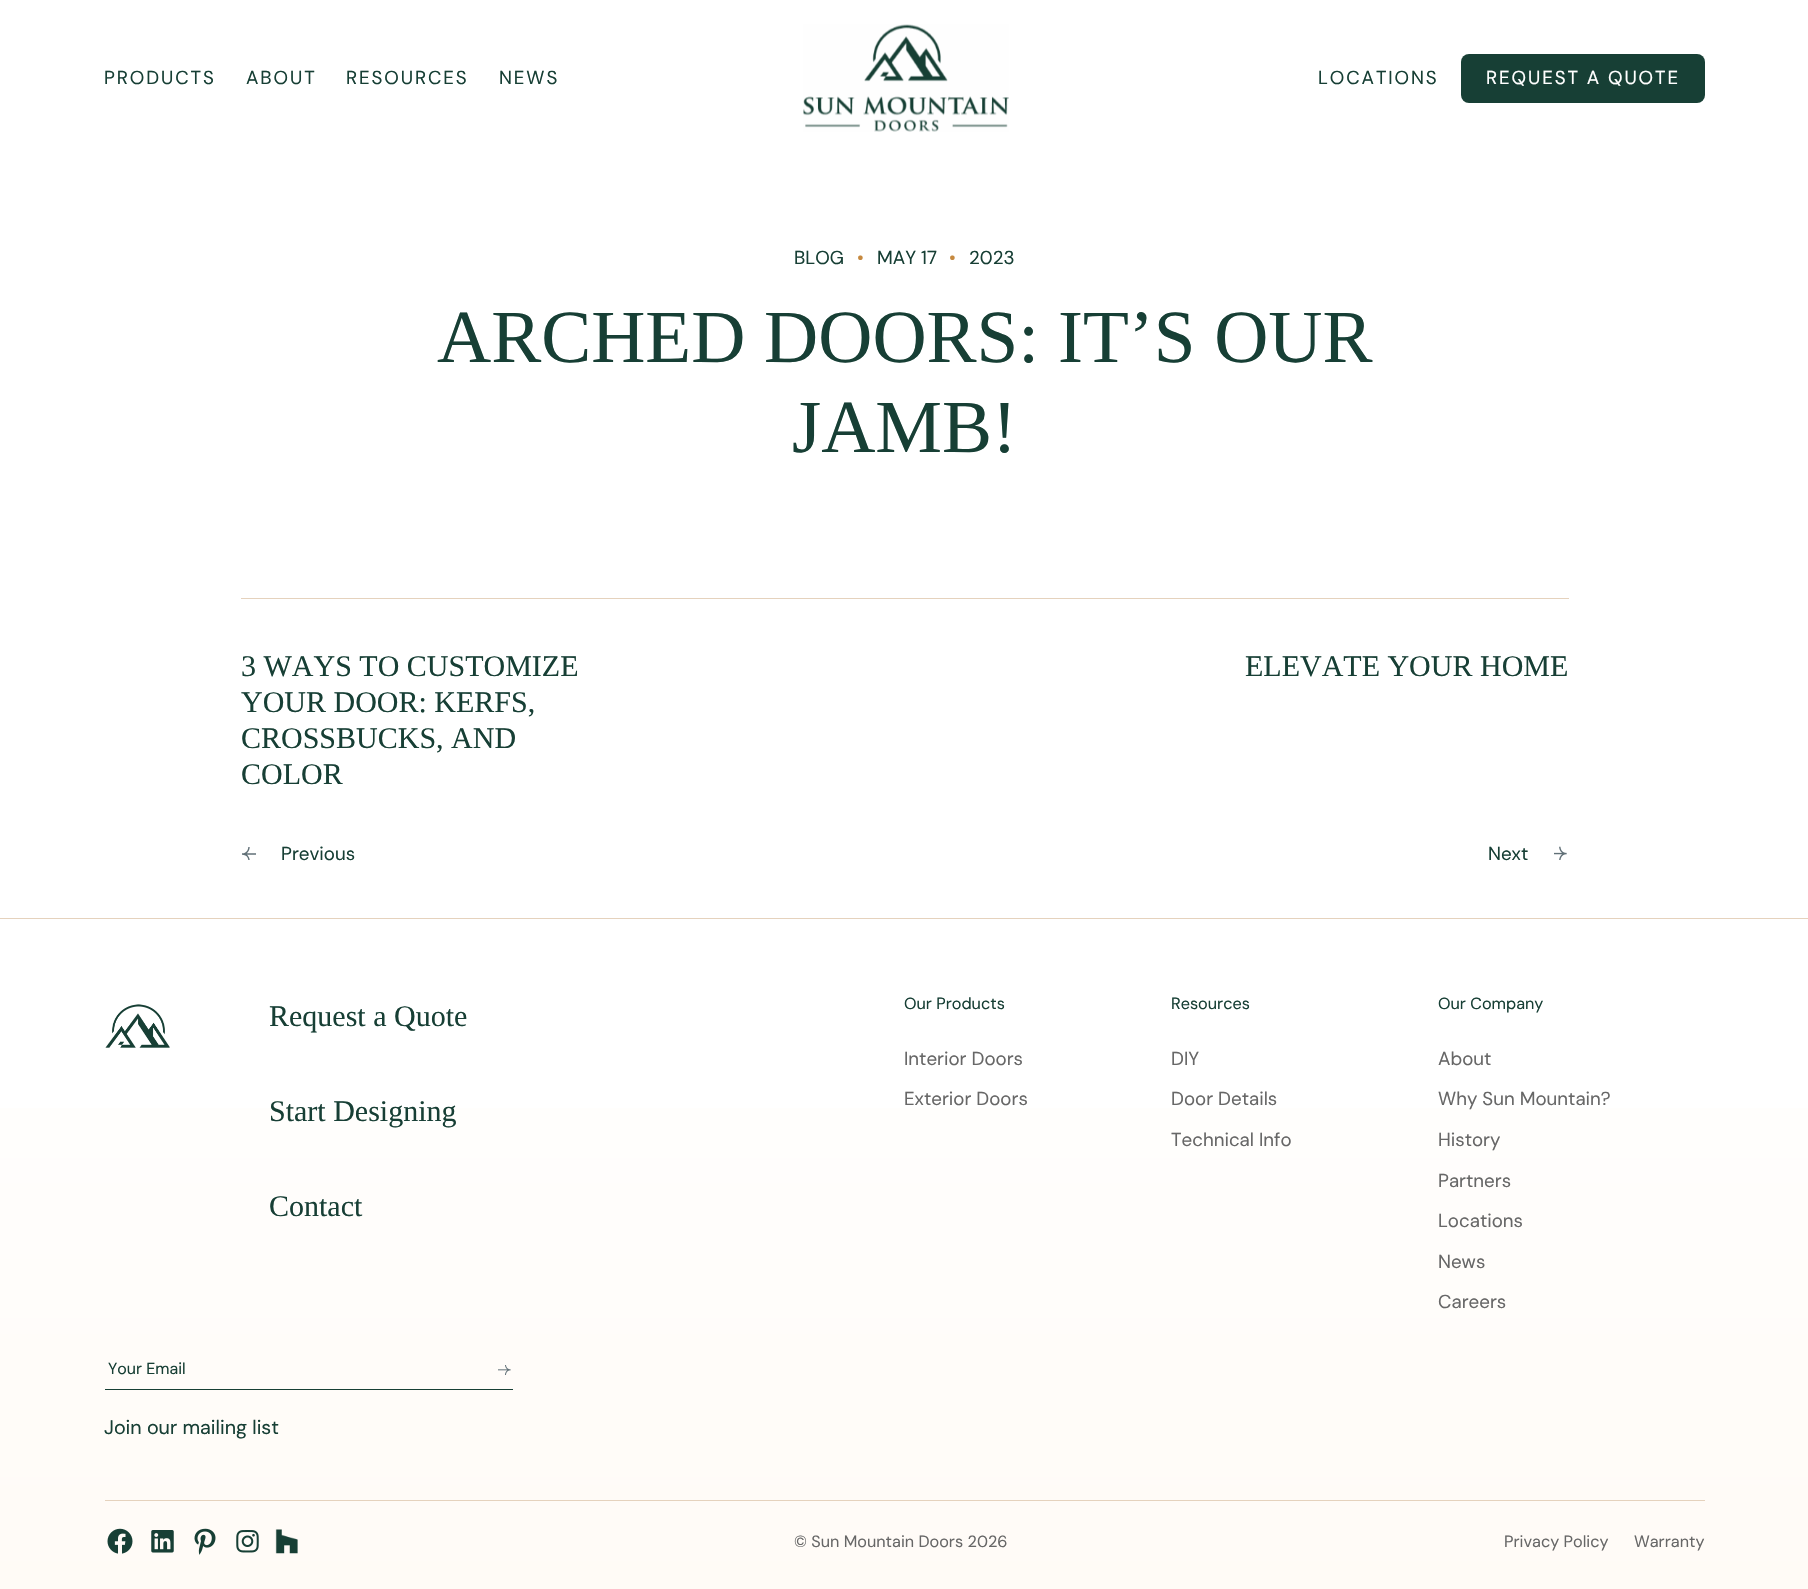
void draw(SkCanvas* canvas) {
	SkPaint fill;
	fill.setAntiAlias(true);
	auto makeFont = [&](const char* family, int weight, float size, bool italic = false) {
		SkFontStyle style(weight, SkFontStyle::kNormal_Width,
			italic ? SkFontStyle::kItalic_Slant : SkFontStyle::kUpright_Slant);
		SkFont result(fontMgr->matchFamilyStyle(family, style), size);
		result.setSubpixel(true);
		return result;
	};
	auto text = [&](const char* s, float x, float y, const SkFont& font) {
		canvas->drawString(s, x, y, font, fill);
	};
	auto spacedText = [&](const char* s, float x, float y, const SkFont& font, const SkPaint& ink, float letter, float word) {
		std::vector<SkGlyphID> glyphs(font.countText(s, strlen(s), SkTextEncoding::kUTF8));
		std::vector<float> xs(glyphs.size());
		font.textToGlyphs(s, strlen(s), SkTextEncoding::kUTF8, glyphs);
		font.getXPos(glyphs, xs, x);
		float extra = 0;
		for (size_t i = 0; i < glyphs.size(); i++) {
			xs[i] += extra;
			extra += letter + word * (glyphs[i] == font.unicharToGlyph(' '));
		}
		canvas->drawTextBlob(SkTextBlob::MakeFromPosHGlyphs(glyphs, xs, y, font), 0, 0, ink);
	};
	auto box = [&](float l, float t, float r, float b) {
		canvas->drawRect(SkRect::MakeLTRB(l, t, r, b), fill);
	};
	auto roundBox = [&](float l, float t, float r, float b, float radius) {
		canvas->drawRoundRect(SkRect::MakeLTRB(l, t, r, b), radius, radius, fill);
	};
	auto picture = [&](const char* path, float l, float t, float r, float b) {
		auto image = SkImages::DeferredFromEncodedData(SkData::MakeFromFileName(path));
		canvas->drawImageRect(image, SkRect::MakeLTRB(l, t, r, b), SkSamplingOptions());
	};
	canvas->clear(0xFFFFFFFF);
	picture("image0.png", 803, 24, 1009, 132);
	fill.setColor(0xFF173F35);
	roundBox(1461, 54, 1705, 103, 8);
	fill.setColor(0xFFE5D2BD);
	box(241, 598, 1569, 599);
	canvas->save();
	canvas->clipRect(SkRect::MakeLTRB(241, 846, 256, 860));
	fill.setStyle(SkPaint::kStroke_Style);
	fill.setStrokeWidth(1.4f);
	fill.setColor(0xFF617077);
	canvas->drawPath(SkPathBuilder().moveTo(242.5f, 854).lineTo(260.5f, 854).moveTo(249, 860.5f).cubicTo(249, 860.5f, 249, 854, 242, 854).cubicTo(249, 854, 249, 847, 249, 847).detach(), fill);
	canvas->restore();
	picture("image1.png", 1554, 846, 1567, 860);
	fill.setStyle(SkPaint::kFill_Style);
	fill.setColor(0xFFE5D2BD);
	box(0, 918, 1808, 919);
	{
		const SkColor colors[] = {0xFFFFFFFF, 0xFFFFF6EC};
		const float stops[] = {0, 1};
		const SkPoint ends[] = {{904, 919}, {904, 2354}};
		fill.setShader(SkGradientShader::MakeLinear(ends, colors, stops, 2, SkTileMode::kClamp));
		fill.setAlpha(255);
	}
	box(0, 1108, 1808, 1589);
	picture("image2.png", 105, 1004, 170, 1048);
	fill.setShader(nullptr);
	fill.setColor(0xFF173F35);
	box(105, 1389, 513, 1390);
	picture("image3.png", 498, 1365, 511, 1375);
	fill.setColor(0xFFE5D2BD);
	box(105, 1500, 1705, 1501);
	picture("image4.png", 107, 1528, 133, 1554);
	picture("image5.png", 151, 1530, 174, 1553);
	picture("image6.png", 194, 1528, 216, 1555);
	picture("image7.png", 236, 1530, 259, 1553);
	picture("image8.png", 275, 1529, 298, 1554);
	auto font1 = makeFont("DM Sans", 400, 18.75f);
	fill.setColor(0xFF173F35);
	spacedText("PRODUCTS", 104, 84, font1, fill, 1.9f, 0);
	spacedText("ABOUT", 246, 84, font1, fill, 1.9f, 0);
	spacedText("RESOURCES", 346, 84, font1, fill, 1.9f, 0);
	spacedText("NEWS", 499, 84, font1, fill, 1.9f, 0);
	spacedText("LOCATIONS", 1318, 84, font1, fill, 1.9f, 0);
	fill.setColor(0xFFFFFFFF);
	spacedText("REQUEST A QUOTE", 1486, 84, font1, fill, 1.9f, 0);
	fill.setColor(0xFF173F35);
	text("BLOG", 794, 264, font1);
	fill.setColor(0xFFC6893F);
	text("•", 857, 264, font1);
	fill.setColor(0xFF173F35);
	text("MAY 17", 877, 264, font1);
	fill.setColor(0xFFC6893F);
	text("•", 949, 264, font1);
	fill.setColor(0xFF173F35);
	text("2023", 969, 264, font1);
	auto font2 = makeFont("Liberation Serif", 400, 75);
	text("ARCHED DOORS: IT’S OUR", 437, 362, font2);
	text("JAMB!", 792, 452, font2);
	auto font3 = makeFont("Liberation Serif", 400, 30);
	text("3 WAYS TO CUSTOMIZE", 241, 676, font3);
	text("YOUR DOOR: KERFS,", 241, 712, font3);
	text("CROSSBUCKS, AND", 241, 748, font3);
	text("COLOR", 241, 784, font3);
	text("Previous", 281, 860, font1);
	text("ELEVATE YOUR HOME", 1245, 676, font3);
	text("Next", 1488, 860, font1);
	text("Request a Quote", 269, 1026, font3);
	text("Start Designing", 269, 1121, font3);
	text("Contact", 269, 1216, font3);
	auto font4 = makeFont("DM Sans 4", 400, 16);
	text("Your Email", 108, 1374, font4);
	auto font5 = makeFont("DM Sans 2", 400, 19.75f);
	text("Join our mailing list", 104, 1434, font5);
	auto font6 = makeFont("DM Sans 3", 400, 16.25f);
	text("Our Products", 904, 1009, font6);
	fill.setColor(0xFF676767);
	text("Interior Doors", 904, 1065, font1);
	text("Exterior Doors", 904, 1105, font1);
	fill.setColor(0xFF173F35);
	text("Resources", 1171, 1009, font6);
	fill.setColor(0xFF676767);
	text("DIY", 1171, 1065, font1);
	text("Door Details", 1171, 1105, font1);
	text("Technical Info", 1171, 1146, font1);
	fill.setColor(0xFF173F35);
	text("Our Company", 1438, 1009, font6);
	fill.setColor(0xFF676767);
	text("About", 1438, 1065, font1);
	text("Why Sun Mountain?", 1438, 1105, font1);
	text("History", 1438, 1146, font1);
	text("Partners", 1438, 1187, font1);
	text("Locations", 1438, 1227, font1);
	text("News", 1438, 1268, font1);
	text("Careers", 1438, 1308, font1);
	text("© Sun Mountain Doors 2026", 794, 1547, font6);
	text("Privacy Policy", 1504, 1547, font6);
	text("Warranty", 1634, 1547, font6);
}
